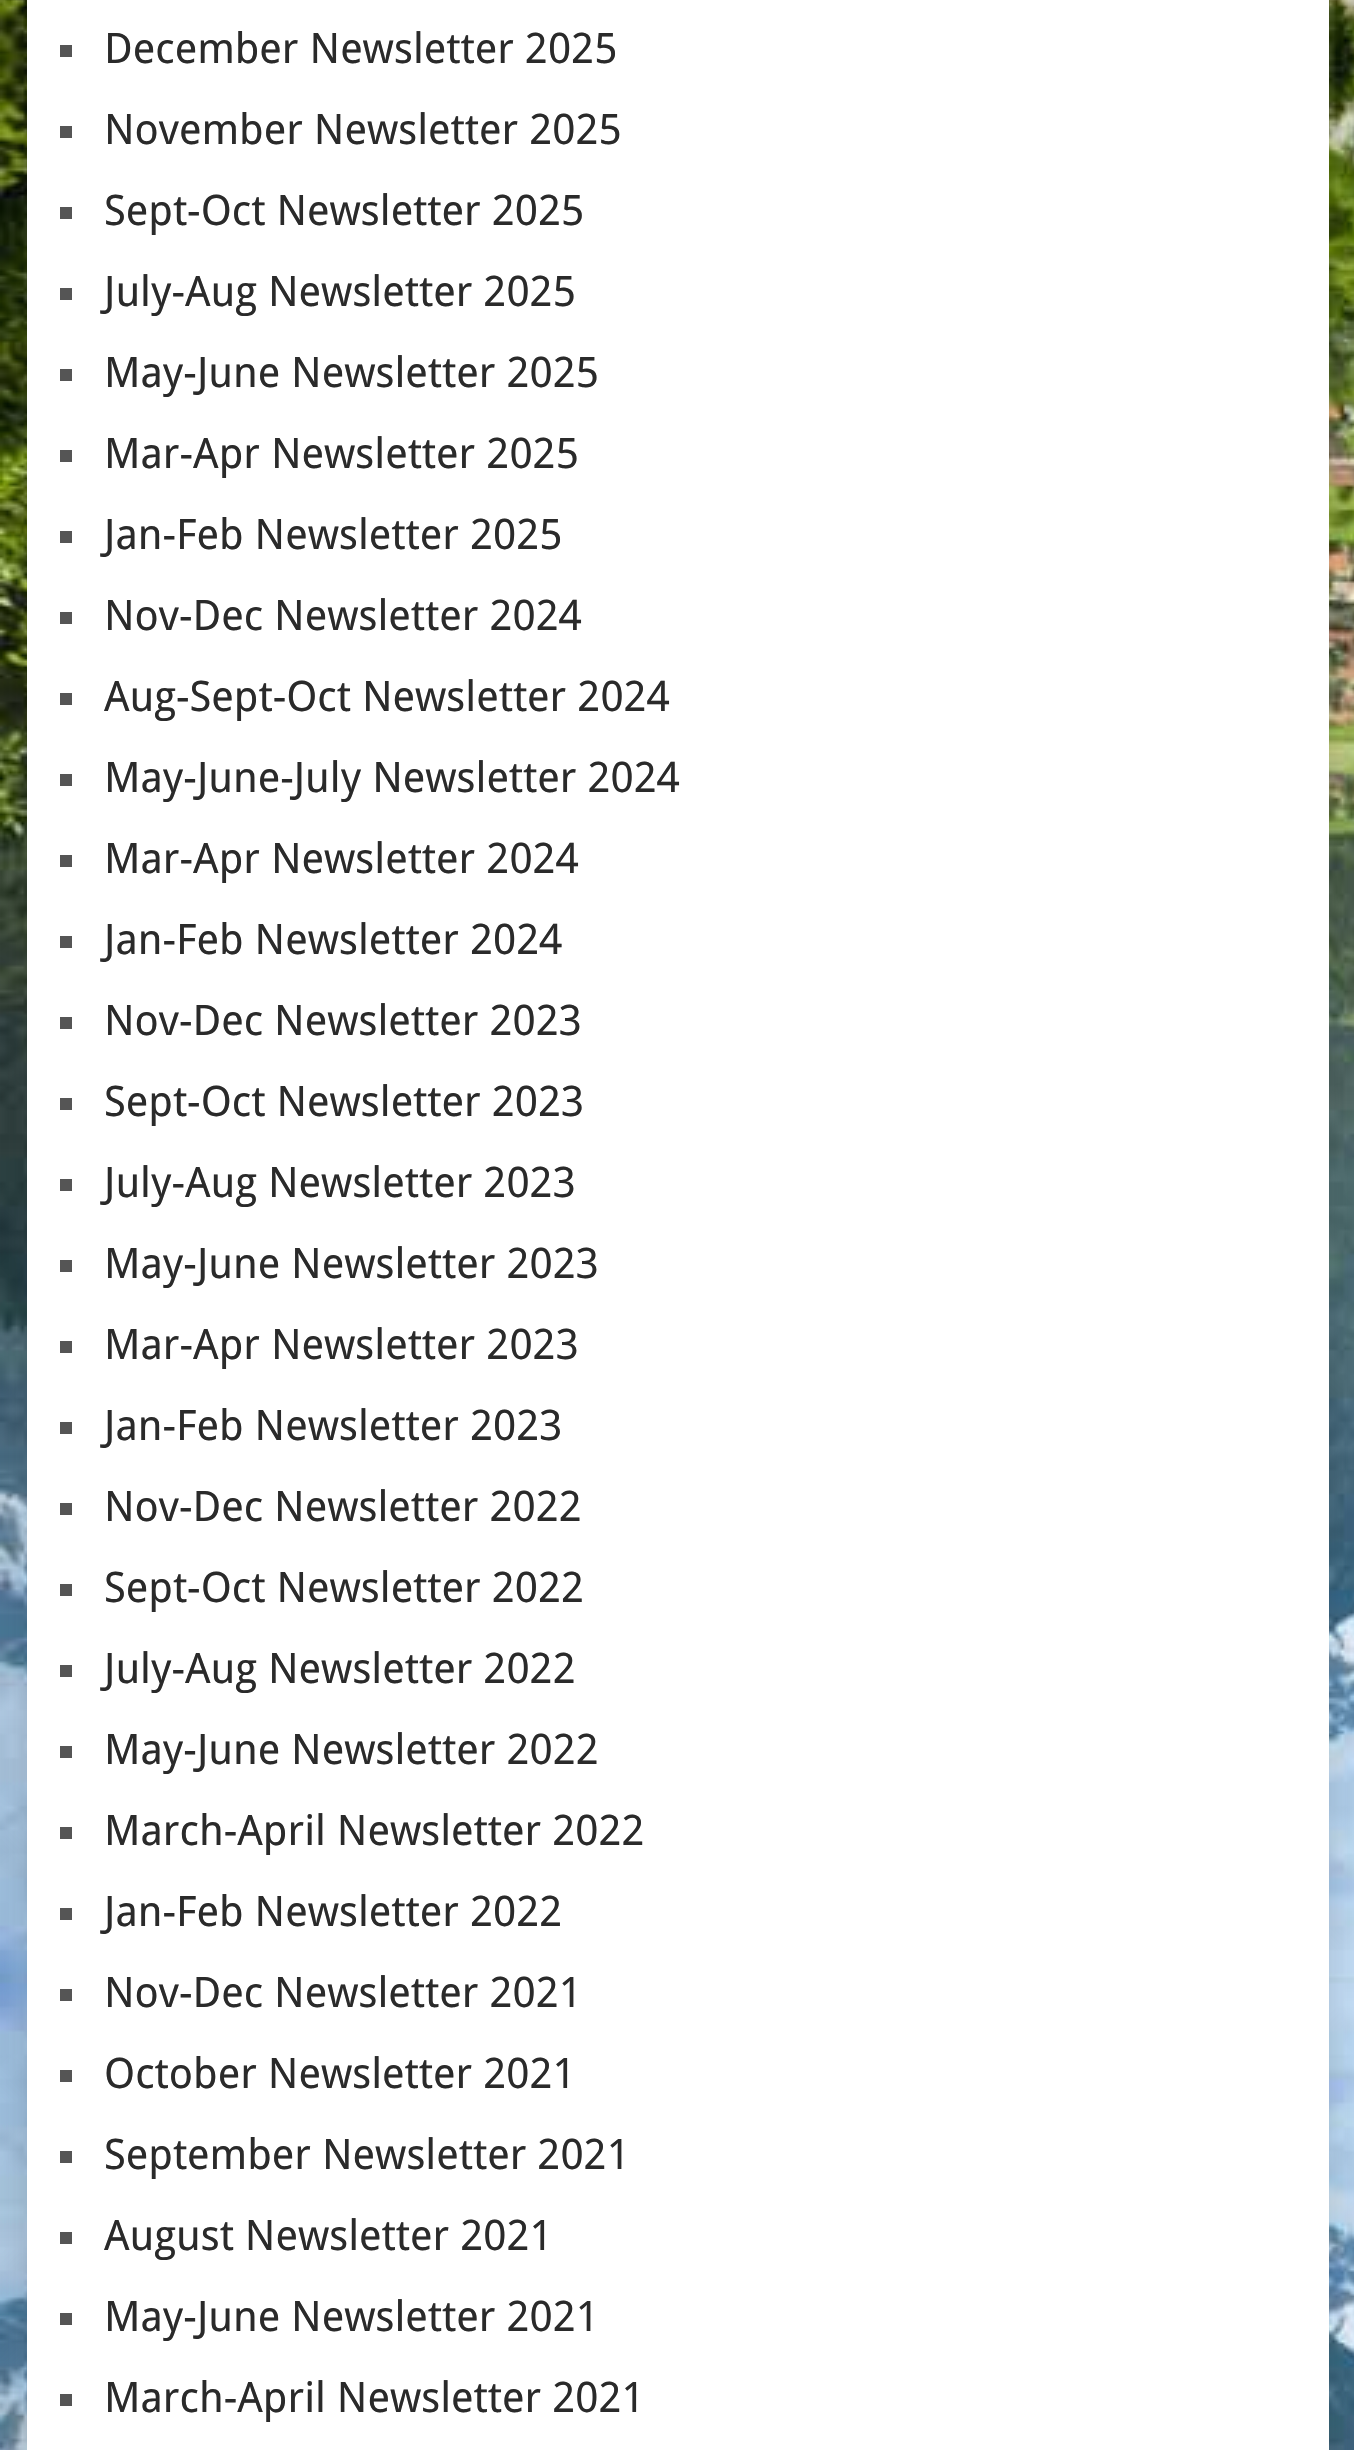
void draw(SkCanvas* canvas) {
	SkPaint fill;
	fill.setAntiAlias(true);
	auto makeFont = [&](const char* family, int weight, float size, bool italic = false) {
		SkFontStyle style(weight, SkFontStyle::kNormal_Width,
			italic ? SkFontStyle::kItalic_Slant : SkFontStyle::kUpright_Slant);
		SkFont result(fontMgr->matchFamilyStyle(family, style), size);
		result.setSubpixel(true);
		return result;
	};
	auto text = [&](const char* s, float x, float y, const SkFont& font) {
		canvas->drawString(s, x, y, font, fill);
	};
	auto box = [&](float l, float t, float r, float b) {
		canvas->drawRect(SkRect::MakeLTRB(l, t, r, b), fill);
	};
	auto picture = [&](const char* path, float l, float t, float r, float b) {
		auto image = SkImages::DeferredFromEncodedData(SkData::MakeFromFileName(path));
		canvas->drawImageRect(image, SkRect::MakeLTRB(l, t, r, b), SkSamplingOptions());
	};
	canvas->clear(0xFFFFFFFF);
	picture("image0.png", 0, 0, 1354, 2450);
	fill.setColor(0x2B323232);
	fill.setMaskFilter(SkMaskFilter::MakeBlur(kNormal_SkBlurStyle, 15));
	canvas->drawRect(SkRect::MakeLTRB(27, -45, 1329, 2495), fill);
	fill.setMaskFilter(nullptr);
	fill.setColor(0xFFFFFFFF);
	box(27, 0, 1329, 2450);
	fill.setColor(0xFF555555);
	box(60, 45, 72, 57);
	box(60, 126, 72, 138);
	box(60, 207, 72, 219);
	box(60, 288, 72, 300);
	box(60, 369, 72, 381);
	box(60, 450, 72, 462);
	box(60, 531, 72, 543);
	box(60, 612, 72, 624);
	box(60, 693, 72, 705);
	box(60, 774, 72, 786);
	box(60, 855, 72, 867);
	box(60, 936, 72, 948);
	box(60, 1017, 72, 1029);
	box(60, 1098, 72, 1110);
	box(60, 1179, 72, 1191);
	box(60, 1260, 72, 1272);
	box(60, 1341, 72, 1353);
	box(60, 1422, 72, 1434);
	box(60, 1503, 72, 1515);
	box(60, 1584, 72, 1596);
	box(60, 1665, 72, 1677);
	box(60, 1746, 72, 1758);
	box(60, 1827, 72, 1839);
	box(60, 1908, 72, 1920);
	box(60, 1989, 72, 2001);
	box(60, 2070, 72, 2082);
	box(60, 2151, 72, 2163);
	box(60, 2232, 72, 2244);
	box(60, 2313, 72, 2325);
	box(60, 2394, 72, 2406);
	auto font1 = makeFont("Droid Sans", 400, 42);
	fill.setColor(0xFF2A2A2A);
	text("December Newsletter 2025", 104, 63, font1);
	text("November Newsletter 2025", 104, 144, font1);
	text("Sept-Oct Newsletter 2025", 104, 225, font1);
	text("July-Aug Newsletter 2025", 104, 306, font1);
	text("May-June Newsletter 2025", 104, 387, font1);
	text("Mar-Apr Newsletter 2025", 104, 468, font1);
	text("Jan-Feb Newsletter 2025", 104, 549, font1);
	text("Nov-Dec Newsletter 2024", 104, 630, font1);
	text("Aug-Sept-Oct Newsletter 2024", 104, 711, font1);
	text("May-June-July Newsletter 2024", 104, 792, font1);
	text("Mar-Apr Newsletter 2024", 104, 873, font1);
	text("Jan-Feb Newsletter 2024", 104, 954, font1);
	text("Nov-Dec Newsletter 2023", 104, 1035, font1);
	text("Sept-Oct Newsletter 2023", 104, 1116, font1);
	text("July-Aug Newsletter 2023", 104, 1197, font1);
	text("May-June Newsletter 2023", 104, 1278, font1);
	text("Mar-Apr Newsletter 2023", 104, 1359, font1);
	text("Jan-Feb Newsletter 2023", 104, 1440, font1);
	text("Nov-Dec Newsletter 2022", 104, 1521, font1);
	text("Sept-Oct Newsletter 2022", 104, 1602, font1);
	text("July-Aug Newsletter 2022", 104, 1683, font1);
	text("May-June Newsletter 2022", 104, 1764, font1);
	text("March-April Newsletter 2022", 104, 1845, font1);
	text("Jan-Feb Newsletter 2022", 104, 1926, font1);
	text("Nov-Dec Newsletter 2021", 104, 2007, font1);
	text("October Newsletter 2021", 104, 2088, font1);
	text("September Newsletter 2021", 104, 2169, font1);
	text("August Newsletter 2021", 104, 2250, font1);
	text("May-June Newsletter 2021", 104, 2331, font1);
	text("March-April Newsletter 2021", 104, 2412, font1);
}
